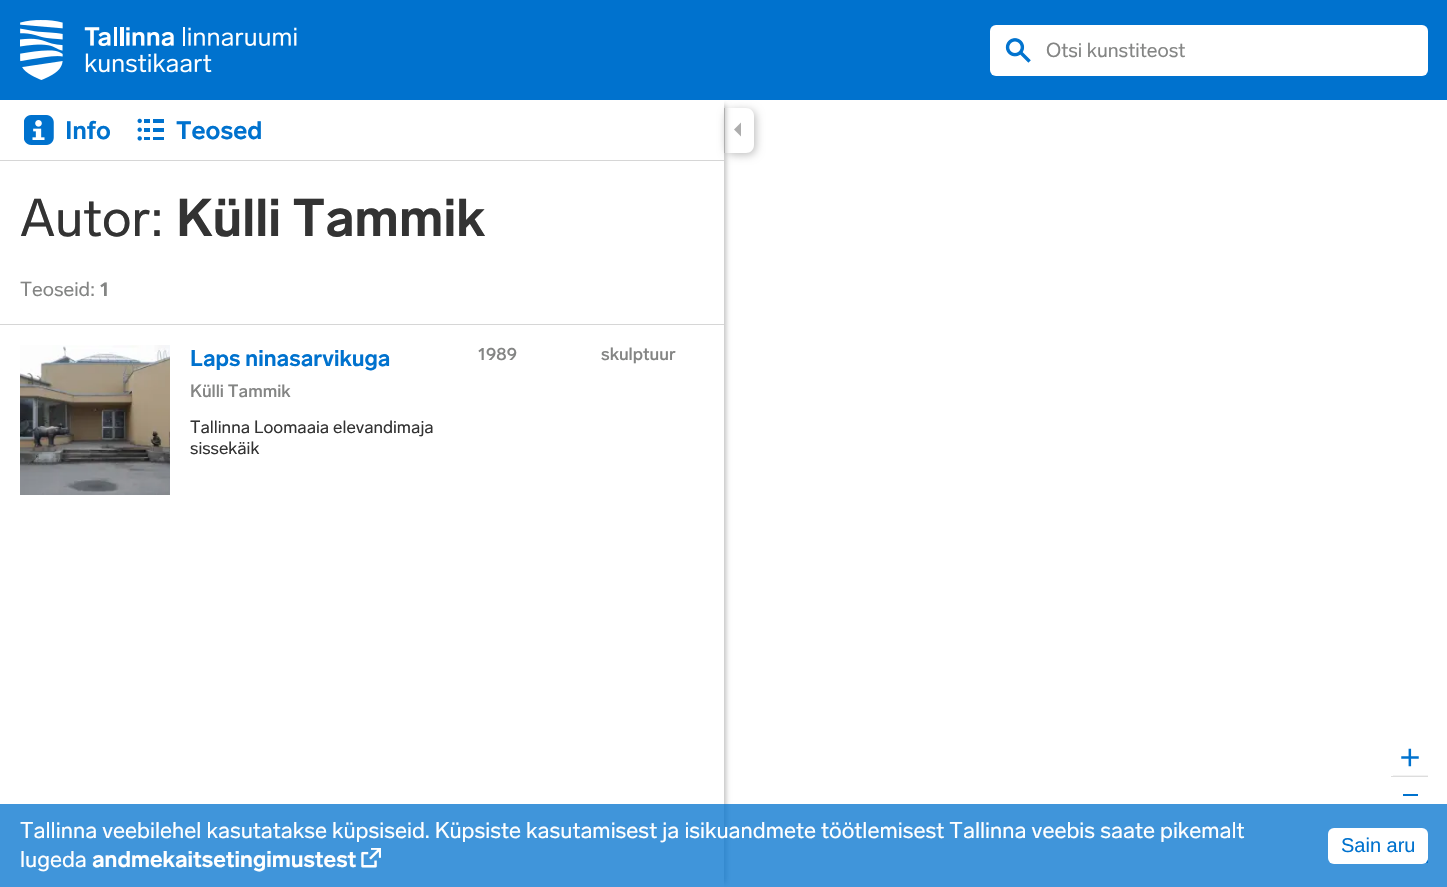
void draw(SkCanvas* canvas) {
	SkPaint fill;
	fill.setAntiAlias(true);
	auto makeFont = [&](const char* family, int weight, float size, bool italic = false) {
		SkFontStyle style(weight, SkFontStyle::kNormal_Width,
			italic ? SkFontStyle::kItalic_Slant : SkFontStyle::kUpright_Slant);
		SkFont result(fontMgr->matchFamilyStyle(family, style), size);
		result.setSubpixel(true);
		return result;
	};
	auto text = [&](const char* s, float x, float y, const SkFont& font) {
		canvas->drawString(s, x, y, font, fill);
	};
	auto box = [&](float l, float t, float r, float b) {
		canvas->drawRect(SkRect::MakeLTRB(l, t, r, b), fill);
	};
	auto roundBox = [&](float l, float t, float r, float b, float radius) {
		canvas->drawRoundRect(SkRect::MakeLTRB(l, t, r, b), radius, radius, fill);
	};
	auto picture = [&](const char* path, float l, float t, float r, float b) {
		auto image = SkImages::DeferredFromEncodedData(SkData::MakeFromFileName(path));
		canvas->drawImageRect(image, SkRect::MakeLTRB(l, t, r, b), SkSamplingOptions());
	};
	canvas->clear(0xFFFFFFFF);
	fill.setColor(0xFFD6D6D6);
	box(0, 160, 724, 161);
	fill.setColor(0x40000000);
	fill.setMaskFilter(SkMaskFilter::MakeBlur(kNormal_SkBlurStyle, 4));
	canvas->drawRoundRect(SkRect::MakeLTRB(726, 110, 756, 155), 8, 8, fill);
	fill.setMaskFilter(nullptr);
	picture("image2.png", 24, 115, 54, 145);
	picture("image3.png", 137, 118, 164, 141);
	fill.setColor(0xFFFFFFFF);
	canvas->drawPath(SkPathBuilder().moveTo(724, 108).lineTo(746, 108).cubicTo(750.5f, 108, 754, 111.5f, 754, 116).lineTo(754, 145).cubicTo(754, 149.5f, 750.5f, 153, 746, 153).lineTo(724, 153).close().detach(), fill);
	fill.setColor(0xFFD6D6D6);
	box(724, 108, 725, 153);
	fill.setColor(0xFFADADAD);
	canvas->drawPath(SkPathBuilder().moveTo(741, 122.5f).lineTo(741, 136.5f).lineTo(734, 129.5f).close().detach(), fill);
	canvas->save();
	canvas->clipPath(SkPathBuilder(SkPathFillType::kEvenOdd).moveTo(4, 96).lineTo(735, 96).lineTo(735, 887).lineTo(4, 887).close().moveTo(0, 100).lineTo(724, 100).lineTo(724, 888).lineTo(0, 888).close().detach(), true);
	fill.setColor(0x40000000);
	fill.setMaskFilter(SkMaskFilter::MakeBlur(kNormal_SkBlurStyle, 2.5f));
	canvas->drawRect(SkRect::MakeLTRB(13, 105, 726, 883), fill);
	fill.setMaskFilter(nullptr);
	canvas->restore();
	fill.setColor(0xFF0072CE);
	box(0, 0, 1447, 100);
	picture("image0.png", 20, 20, 297, 80);
	fill.setColor(0xFFFFFFFF);
	roundBox(990, 25, 1428, 76, 6);
	picture("image1.png", 1005, 38, 1031, 63);
	fill.setColor(0xFFD6D6D6);
	box(0, 324, 724, 325);
	picture("image4.png", 20, 345, 170, 495);
	picture("image5.png", 1393, 748, 1428, 776);
	fill.setColor(0xFFDDDDDD);
	box(1391, 776, 1428, 777);
	fill.setColor(0xFF0072CE);
	box(1403, 794, 1418, 796);
	box(1425, 860, 1428, 863);
	fill.setColor(0xBF0072CE);
	box(0, 804, 1447, 887);
	picture("image6.png", 361, 848, 381, 868);
	fill.setColor(0xFFFFFFFF);
	roundBox(1328, 828, 1428, 864, 6);
	auto font1 = makeFont("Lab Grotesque", 400, 20);
	fill.setColor(0xFF848584);
	text("Otsi kunstiteost", 1046, 57, font1);
	auto font2 = makeFont("Lab Grotesque", 700, 25);
	fill.setColor(0xFF0072CE);
	text("Info", 65, 139, font2);
	text("Teosed", 176, 139, font2);
	auto font3 = makeFont("Lab Grotesque", 400, 52.5f);
	fill.setColor(0xFF333333);
	text("Autor:", 20, 236, font3);
	auto font4 = makeFont("Lab Grotesque", 700, 52.5f);
	text("Külli Tammik", 176, 236, font4);
	fill.setColor(0xFF848584);
	text("Teoseid:", 20, 296, font1);
	auto font5 = makeFont("Lab Grotesque", 700, 20);
	text("1", 100, 296, font5);
	auto font6 = makeFont("Lab Grotesque", 700, 22.5f);
	fill.setColor(0xFF0072CE);
	text("Laps ninasarvikuga", 190, 366, font6);
	auto font7 = makeFont("Lab Grotesque", 500, 17.5f);
	fill.setColor(0xFF848584);
	text("Külli Tammik", 190, 397, font7);
	auto font8 = makeFont("Lab Grotesque", 400, 17.5f);
	fill.setColor(0xFF333333);
	text("Tallinna Loomaaia elevandimaja", 190, 433, font8);
	text("sissekäik", 190, 454, font8);
	fill.setColor(0xFF848584);
	text("1989", 478, 360, font7);
	text("skulptuur", 601, 360, font7);
	auto font9 = makeFont("Lab Grotesque", 400, 22.5f);
	fill.setColor(0xFFFFFFFF);
	text("Tallinna veebilehel kasutatakse küpsiseid. Küpsiste kasutamisest ja isikuandmete töötlemisest Tallinna veebis saate pikemalt", 20, 838, font9);
	text("lugeda", 20, 867, font9);
	text("andmekaitsetingimustest", 92, 867, font6);
	auto font10 = makeFont("Liberation Sans", 400, 20);
	fill.setColor(0xFF0072CE);
	text("Sain aru", 1341, 852, font10);
}
